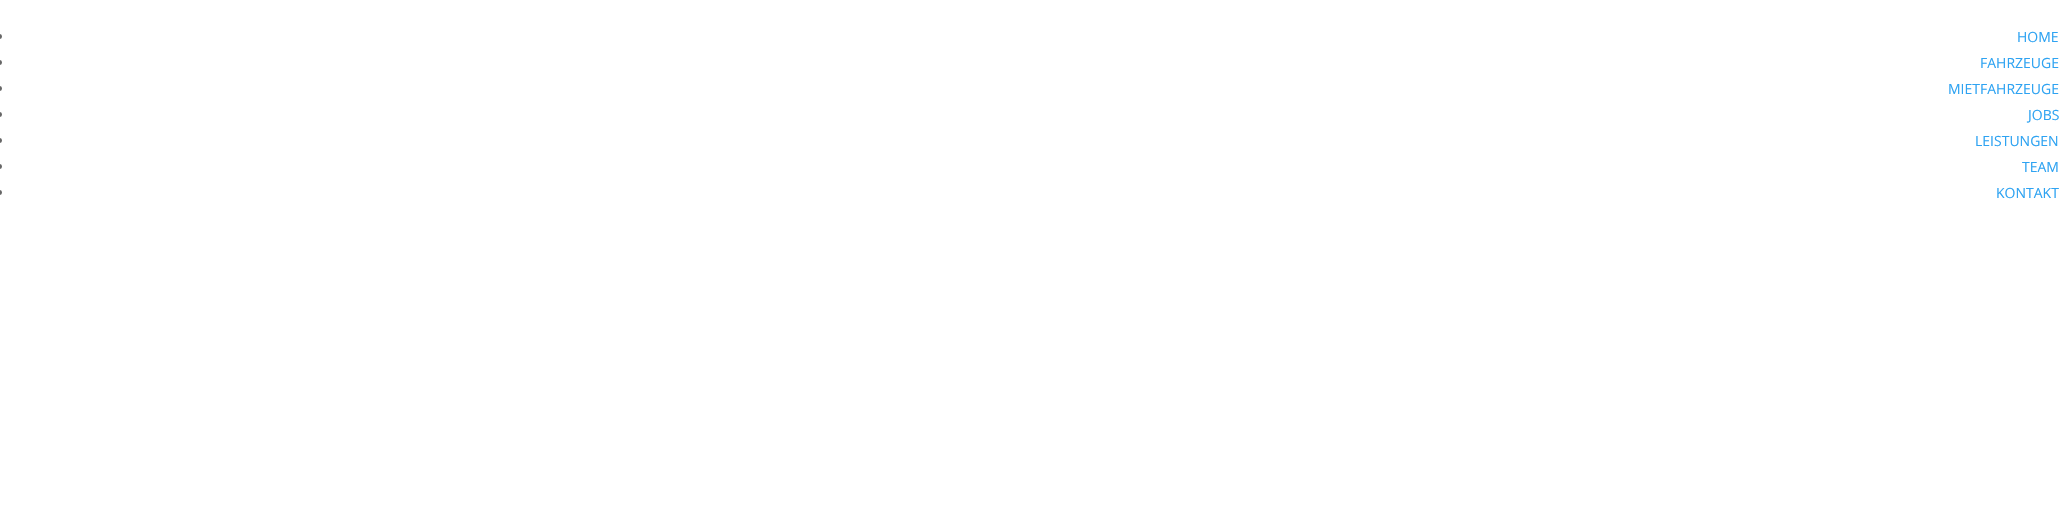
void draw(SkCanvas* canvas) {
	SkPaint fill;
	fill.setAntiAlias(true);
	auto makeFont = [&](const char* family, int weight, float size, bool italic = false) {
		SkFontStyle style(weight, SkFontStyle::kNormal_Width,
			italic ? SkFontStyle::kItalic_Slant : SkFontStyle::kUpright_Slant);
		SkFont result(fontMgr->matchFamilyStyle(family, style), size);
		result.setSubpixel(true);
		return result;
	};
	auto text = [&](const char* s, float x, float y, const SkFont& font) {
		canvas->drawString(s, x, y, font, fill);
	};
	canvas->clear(0xFFFFFFFF);
	fill.setColor(0xFF666666);
	canvas->drawCircle(-0.5f, 36.5f, 2.5f, fill);
	canvas->drawCircle(-0.5f, 62.5f, 2.5f, fill);
	canvas->drawCircle(-0.5f, 88.5f, 2.5f, fill);
	canvas->drawCircle(-0.5f, 114.5f, 2.5f, fill);
	canvas->drawCircle(-0.5f, 140.5f, 2.5f, fill);
	canvas->drawCircle(-0.5f, 166.5f, 2.5f, fill);
	canvas->drawCircle(-0.5f, 192.5f, 2.5f, fill);
	auto font1 = makeFont("Open Sans", 400, 14);
	fill.setColor(0xFF2EA3F2);
	text("HOME", 2017, 42, font1);
	text("FAHRZEUGE", 1980, 68, font1);
	text("MIETFAHRZEUGE", 1948, 94, font1);
	text("JOBS", 2028, 120, font1);
	text("LEISTUNGEN", 1975, 146, font1);
	text("TEAM", 2022, 172, font1);
	text("KONTAKT", 1996, 198, font1);
}
